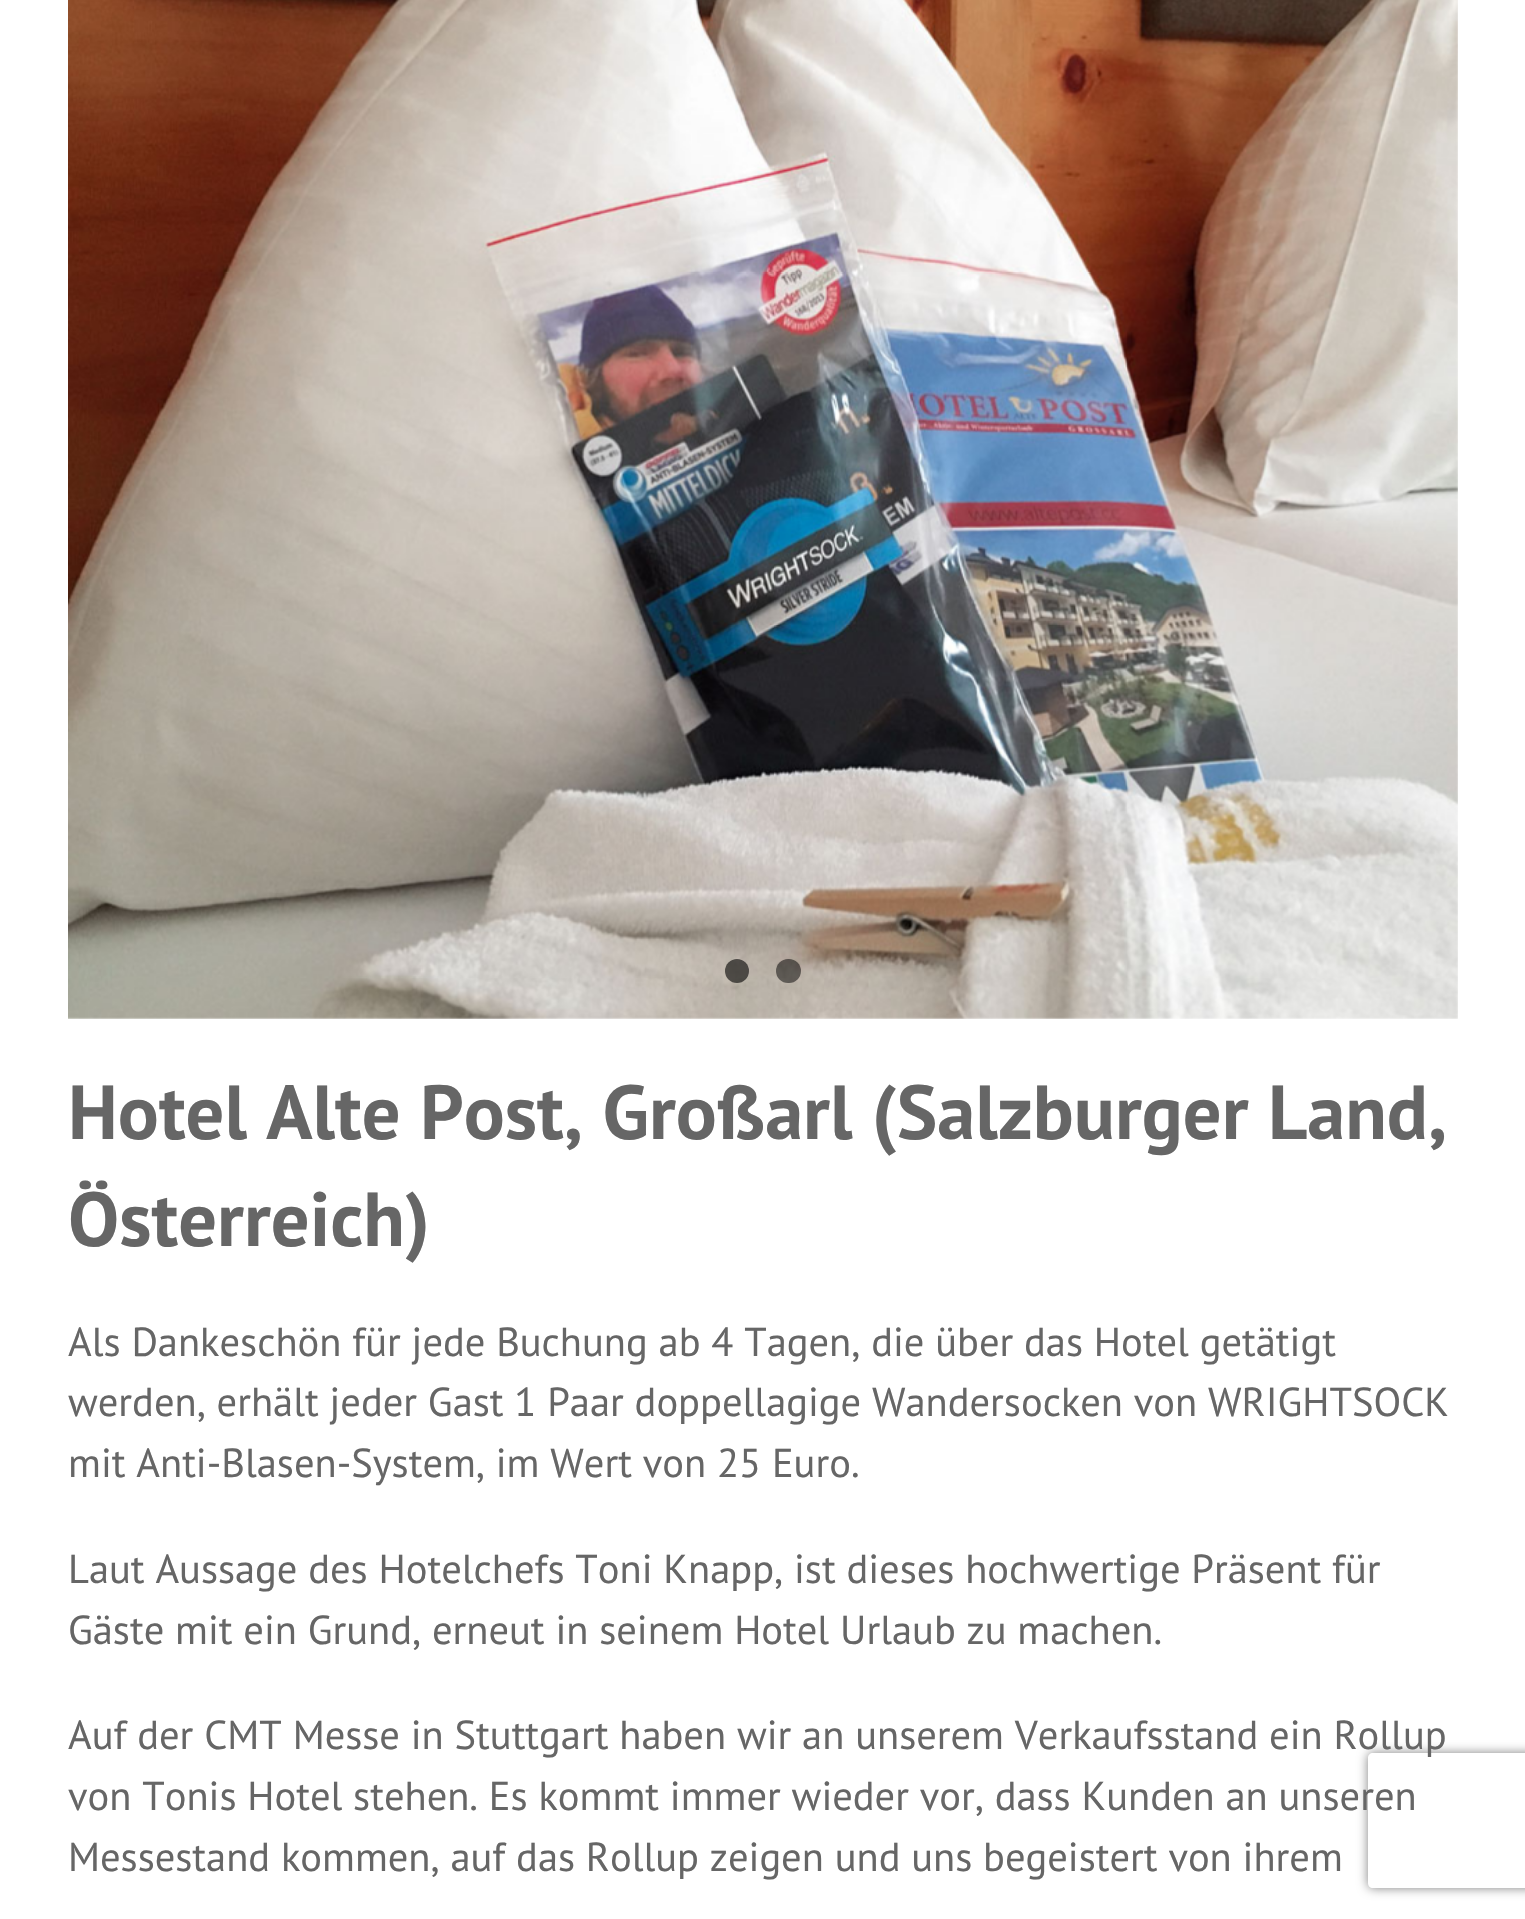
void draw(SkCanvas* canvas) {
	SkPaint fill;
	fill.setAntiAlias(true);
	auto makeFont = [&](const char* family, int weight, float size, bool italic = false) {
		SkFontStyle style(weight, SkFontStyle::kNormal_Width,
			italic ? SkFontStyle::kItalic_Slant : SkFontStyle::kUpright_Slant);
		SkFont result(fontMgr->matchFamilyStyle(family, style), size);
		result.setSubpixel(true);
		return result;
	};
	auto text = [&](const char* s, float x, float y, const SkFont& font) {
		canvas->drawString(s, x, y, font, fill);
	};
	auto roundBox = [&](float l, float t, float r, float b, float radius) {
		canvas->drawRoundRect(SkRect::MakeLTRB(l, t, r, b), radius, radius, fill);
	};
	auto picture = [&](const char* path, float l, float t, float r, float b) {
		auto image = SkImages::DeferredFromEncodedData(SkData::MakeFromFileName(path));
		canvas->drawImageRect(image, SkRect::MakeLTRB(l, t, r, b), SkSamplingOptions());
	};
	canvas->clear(0xFFFFFFFF);
	picture("image0.png", 68, 0, 1458, 1019);
	fill.setColor(0x99000000);
	canvas->drawCircle(737, 971, 12, fill);
	fill.setColor(0x80000000);
	roundBox(776, 959, 801, 983, 12);
	canvas->save();
	canvas->clipPath(SkPathBuilder(SkPathFillType::kEvenOdd).moveTo(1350, 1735).lineTo(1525, 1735).lineTo(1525, 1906).lineTo(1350, 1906).close().moveTo(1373, 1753).lineTo(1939, 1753).cubicTo(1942, 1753, 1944, 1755, 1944, 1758).lineTo(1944, 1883).cubicTo(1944, 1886, 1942, 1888, 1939, 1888).lineTo(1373, 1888).cubicTo(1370, 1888, 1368, 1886, 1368, 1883).lineTo(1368, 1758).cubicTo(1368, 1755, 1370, 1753, 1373, 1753).close().detach(), true);
	fill.setColor(0xFF808080);
	fill.setMaskFilter(SkMaskFilter::MakeBlur(kNormal_SkBlurStyle, 5.5f));
	canvas->drawRoundRect(SkRect::MakeLTRB(1368, 1753, 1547, 1888), 5, 5, fill);
	fill.setMaskFilter(nullptr);
	canvas->restore();
	auto font1 = makeFont("PT Sans", 700, 76.5f);
	fill.setColor(0xFF666666);
	text("Hotel Alte Post, Großarl (Salzburger Land,", 68, 1139, font1);
	text("Österreich)", 68, 1246, font1);
	auto font2 = makeFont("PT Sans", 400, 40.5f);
	text("Als Dankeschön für jede Buchung ab 4 Tagen, die über das Hotel getätigt", 68, 1356, font2);
	text("werden, erhält jeder Gast 1 Paar doppellagige Wandersocken von WRIGHTSOCK", 68, 1416, font2);
	text("mit Anti-Blasen-System, im Wert von 25 Euro.", 68, 1477, font2);
	text("Laut Aussage des Hotelchefs Toni Knapp, ist dieses hochwertige Präsent für", 68, 1583, font2);
	text("Gäste mit ein Grund, erneut in seinem Hotel Urlaub zu machen.", 68, 1644, font2);
	text("Auf der CMT Messe in Stuttgart haben wir an unserem Verkaufsstand ein Rollup", 68, 1749, font2);
	text("von Tonis Hotel stehen. Es kommt immer wieder vor, dass Kunden an unseren", 68, 1810, font2);
	text("Messestand kommen, auf das Rollup zeigen und uns begeistert von ihrem", 68, 1871, font2);
}
